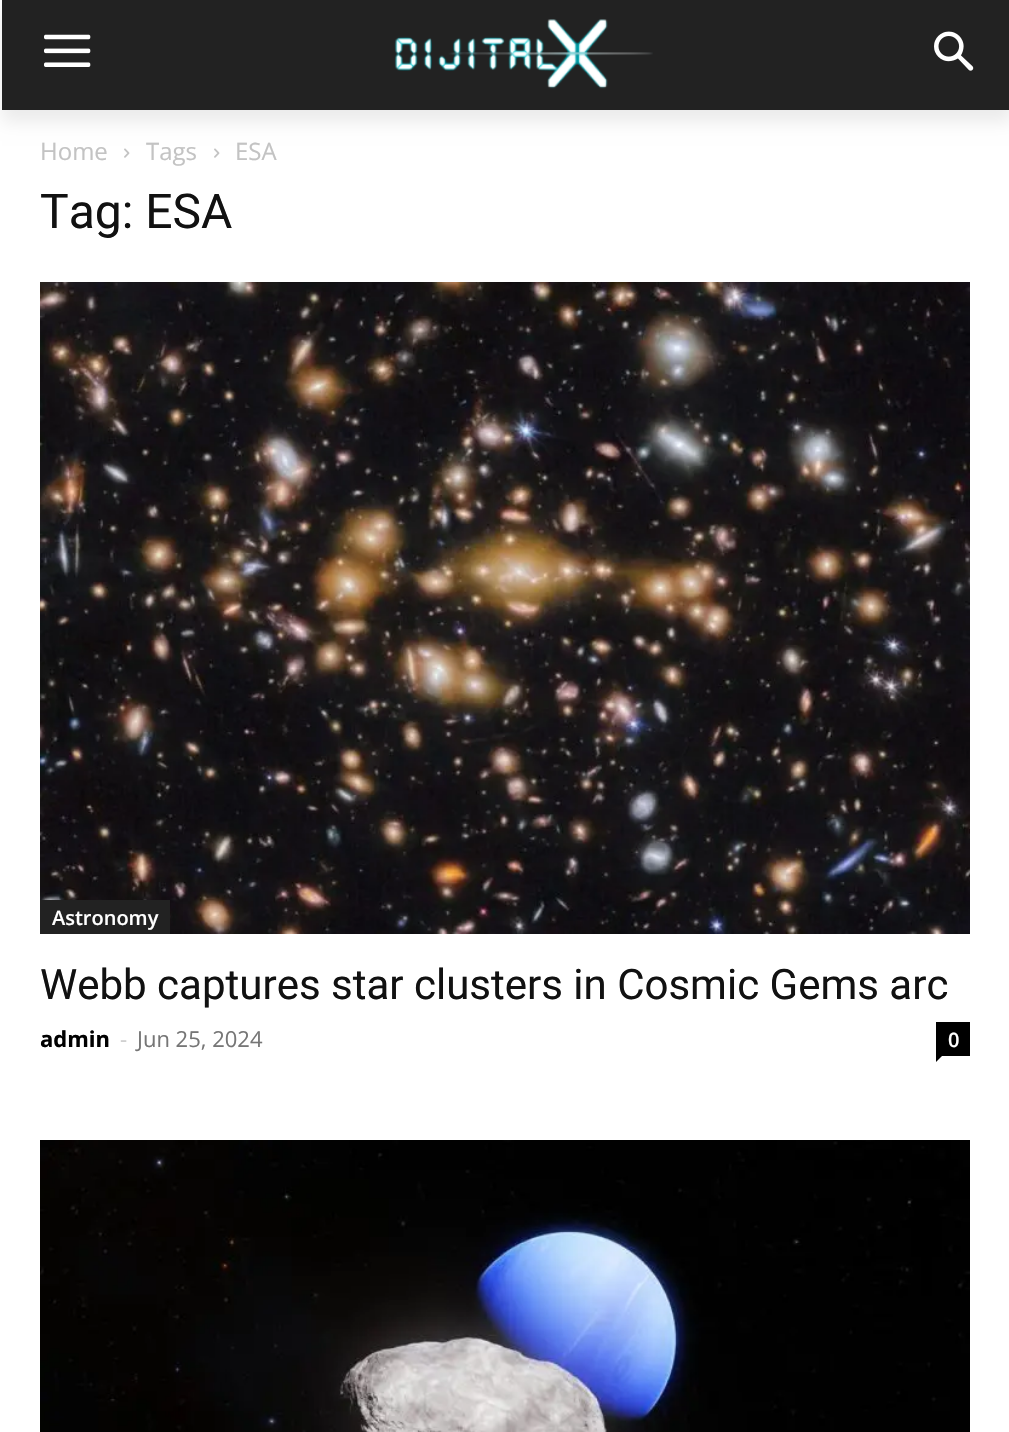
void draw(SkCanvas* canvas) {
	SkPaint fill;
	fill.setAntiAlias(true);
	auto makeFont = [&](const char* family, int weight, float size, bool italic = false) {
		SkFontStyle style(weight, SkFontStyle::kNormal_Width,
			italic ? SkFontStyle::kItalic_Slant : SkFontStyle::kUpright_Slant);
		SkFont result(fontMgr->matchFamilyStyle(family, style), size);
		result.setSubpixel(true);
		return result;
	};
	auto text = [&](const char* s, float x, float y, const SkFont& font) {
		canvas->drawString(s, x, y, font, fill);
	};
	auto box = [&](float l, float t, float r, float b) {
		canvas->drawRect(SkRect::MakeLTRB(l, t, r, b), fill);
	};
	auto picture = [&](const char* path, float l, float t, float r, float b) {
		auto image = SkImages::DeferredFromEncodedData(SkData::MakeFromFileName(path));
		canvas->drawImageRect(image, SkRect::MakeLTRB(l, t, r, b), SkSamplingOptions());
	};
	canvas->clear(0xFFFFFFFF);
	fill.setColor(0xFF222222);
	box(2, 0, 1009, 110);
	picture("image0.png", 44, 34, 91, 67);
	picture("image1.png", 394, 19, 653, 89);
	picture("image2.png", 934, 31, 974, 71);
	canvas->save();
	canvas->clipPath(SkPathBuilder(SkPathFillType::kEvenOdd).moveTo(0, 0).lineTo(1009, 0).lineTo(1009, 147).lineTo(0, 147).close().moveTo(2, 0).lineTo(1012, 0).lineTo(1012, 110).lineTo(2, 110).close().detach(), true);
	fill.setColor(0x14000000);
	fill.setMaskFilter(SkMaskFilter::MakeBlur(kNormal_SkBlurStyle, 8));
	canvas->drawRect(SkRect::MakeLTRB(2, 12, 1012, 122), fill);
	fill.setMaskFilter(nullptr);
	canvas->restore();
	picture("image3.png", 124, 148, 130, 158);
	picture("image3.png", 214, 148, 220, 158);
	picture("image4.png", 40, 282, 970, 934);
	fill.setColor(0xFF222222);
	box(40, 900, 170, 934);
	fill.setColor(0xFF000000);
	box(936, 1022, 970, 1056);
	canvas->drawPath(SkPathBuilder().moveTo(936, 1056).lineTo(942, 1056).lineTo(936, 1062).close().detach(), fill);
	picture("image5.png", 40, 1140, 970, 1432);
	auto font1 = makeFont("Open Sans", 400, 24);
	fill.setColor(0xFFC3C3C3);
	text("Home", 40, 160, font1);
	text("Tags", 146, 160, font1);
	text("ESA", 235, 160, font1);
	auto font2 = makeFont("Roboto", 400, 48);
	fill.setColor(0xFF111111);
	text("Tag: ESA", 40, 228, font2);
	auto font3 = makeFont("Open Sans", 600, 20);
	fill.setColor(0xFFFFFFFF);
	text("Astronomy", 52, 925, font3);
	auto font4 = makeFont("Roboto", 400, 42);
	fill.setColor(0xFF111111);
	text("Webb captures star clusters in Cosmic Gems arc", 40, 999, font4);
	auto font5 = makeFont("Open Sans", 700, 22);
	fill.setColor(0xFF000000);
	text("admin", 40, 1047, font5);
	auto font6 = makeFont("Open Sans", 400, 22);
	fill.setColor(0xFFCCCCCC);
	text("-", 120, 1047, font6);
	fill.setColor(0xFF767676);
	text("Jun 25, 2024", 137, 1047, font6);
	fill.setColor(0xFFFFFFFF);
	text("0", 948, 1047, font3);
}
